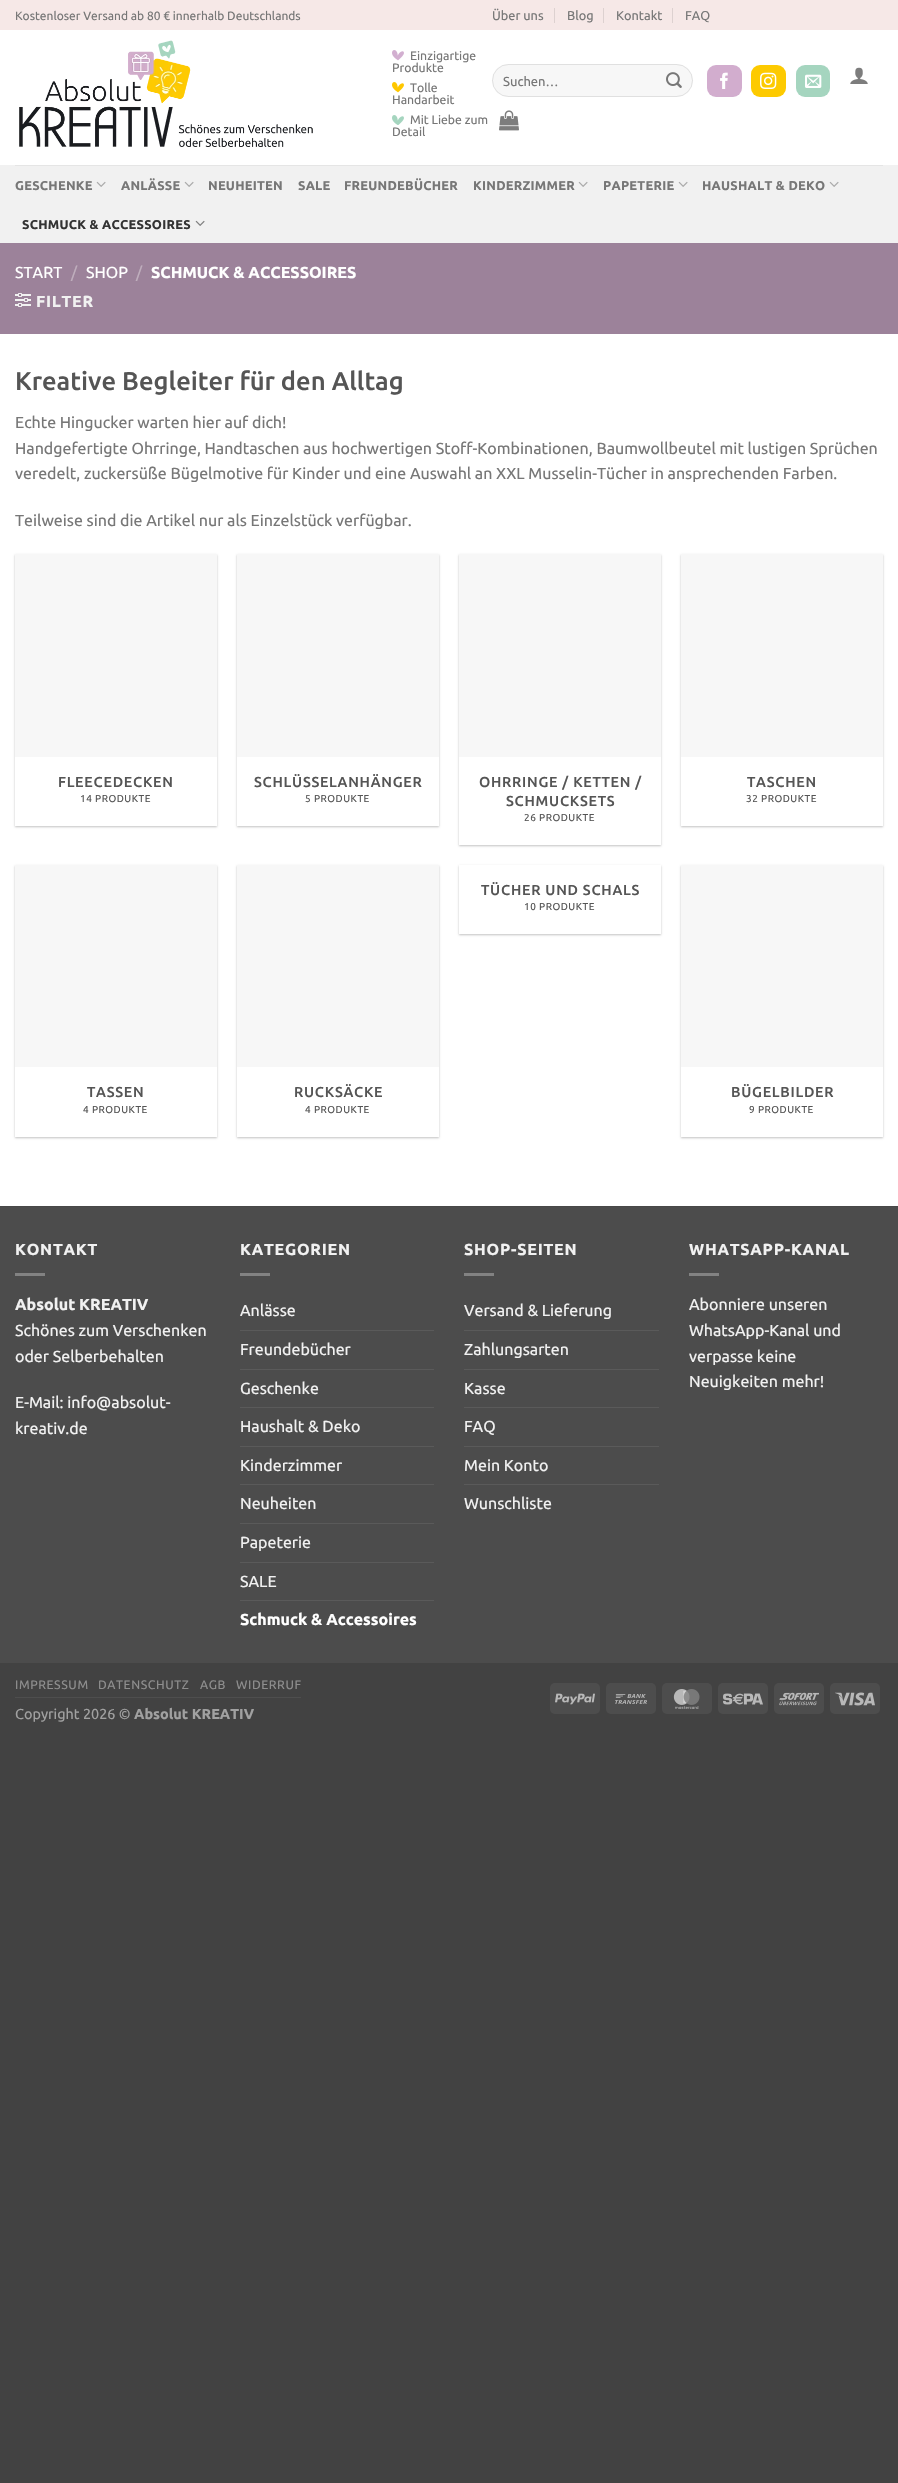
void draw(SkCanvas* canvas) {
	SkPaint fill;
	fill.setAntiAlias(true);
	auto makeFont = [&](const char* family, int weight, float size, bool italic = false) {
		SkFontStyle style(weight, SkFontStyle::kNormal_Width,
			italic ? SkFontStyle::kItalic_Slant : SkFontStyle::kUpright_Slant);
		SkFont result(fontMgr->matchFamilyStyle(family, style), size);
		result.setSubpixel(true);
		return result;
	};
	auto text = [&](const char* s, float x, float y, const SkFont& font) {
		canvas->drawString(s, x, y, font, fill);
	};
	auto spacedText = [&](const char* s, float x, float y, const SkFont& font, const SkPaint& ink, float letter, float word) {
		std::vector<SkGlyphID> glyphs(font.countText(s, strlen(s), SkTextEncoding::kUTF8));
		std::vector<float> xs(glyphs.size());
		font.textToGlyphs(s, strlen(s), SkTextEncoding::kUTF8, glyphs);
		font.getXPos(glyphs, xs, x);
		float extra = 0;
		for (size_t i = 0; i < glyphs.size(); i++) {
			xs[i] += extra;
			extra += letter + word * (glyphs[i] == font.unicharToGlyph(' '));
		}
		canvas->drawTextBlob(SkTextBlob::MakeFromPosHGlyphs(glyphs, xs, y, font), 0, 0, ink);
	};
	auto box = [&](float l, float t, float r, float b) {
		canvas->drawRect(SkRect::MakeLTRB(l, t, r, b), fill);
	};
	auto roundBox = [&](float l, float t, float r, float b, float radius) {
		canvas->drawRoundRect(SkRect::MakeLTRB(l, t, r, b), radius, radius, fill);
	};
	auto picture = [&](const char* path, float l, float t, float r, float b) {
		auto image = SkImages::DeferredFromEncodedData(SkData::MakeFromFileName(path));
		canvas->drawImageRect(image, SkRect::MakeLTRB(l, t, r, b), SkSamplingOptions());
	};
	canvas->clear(0xFF424242);
	fill.setColor(0xFFFFFFFF);
	box(0, 30, 898, 1206);
	fill.setColor(0xFFF6E8E7);
	box(0, 0, 898, 30);
	fill.setColor(0xFFDDD1D0);
	box(554, 8, 555, 23);
	box(603, 8, 604, 23);
	box(672, 8, 673, 23);
	picture("image0.png", 19, 40, 313, 147);
	picture("image1.png", 392, 50, 404, 61);
	picture("image2.png", 392, 82, 404, 93);
	picture("image3.png", 392, 115, 404, 125);
	fill.setColor(0xFFF7F7F7);
	roundBox(492, 64, 693, 97, 16.5f);
	fill.setStyle(SkPaint::kStroke_Style);
	fill.setStrokeWidth(1);
	fill.setColor(0x17000000);
	canvas->drawRoundRect(SkRect::MakeLTRB(492.5f, 64.5f, 692.5f, 96.5f), 16, 16, fill);
	picture("image4.png", 666, 72, 682, 88);
	fill.setStyle(SkPaint::kFill_Style);
	fill.setColor(0xFFD2ADCE);
	roundBox(707, 65, 742, 97, 9);
	picture("image5.png", 720, 72, 728, 89);
	fill.setColor(0xFFFDCA00);
	roundBox(751, 65, 786, 97, 9);
	picture("image6.png", 760, 72, 777, 89);
	fill.setColor(0xFFA5D5BF);
	roundBox(796, 65, 830, 97, 9);
	picture("image7.png", 805, 74, 822, 88);
	picture("image8.png", 850, 67, 868, 84);
	picture("image9.png", 499, 110, 519, 131);
	fill.setColor(0xFFF1F1F1);
	box(0, 165, 898, 243);
	fill.setColor(0xFFE5E5E5);
	box(15, 165, 883, 166);
	picture("image10.png", 96, 181, 106, 187);
	picture("image10.png", 184, 181, 194, 187);
	picture("image10.png", 578, 181, 588, 187);
	picture("image10.png", 678, 181, 688, 187);
	picture("image10.png", 829, 181, 839, 187);
	picture("image11.png", 195, 220, 205, 226);
	fill.setColor(0xFF9C829A);
	box(0, 243, 898, 334);
	picture("image12.png", 15, 293, 31, 307);
	canvas->save();
	canvas->clipPath(SkPathBuilder(SkPathFillType::kEvenOdd).moveTo(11, 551).lineTo(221, 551).lineTo(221, 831).lineTo(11, 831).close().moveTo(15, 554).lineTo(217, 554).lineTo(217, 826).lineTo(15, 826).close().detach(), true);
	fill.setColor(0x3D000000);
	fill.setMaskFilter(SkMaskFilter::MakeBlur(kNormal_SkBlurStyle, 1));
	canvas->drawRect(SkRect::MakeLTRB(15, 555, 217, 827), fill);
	fill.setMaskFilter(nullptr);
	canvas->restore();
	fill.setColor(0xFFF7F7F7);
	box(15, 554, 217, 757);
	canvas->save();
	canvas->clipPath(SkPathBuilder(SkPathFillType::kEvenOdd).moveTo(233, 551).lineTo(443, 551).lineTo(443, 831).lineTo(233, 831).close().moveTo(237, 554).lineTo(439, 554).lineTo(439, 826).lineTo(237, 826).close().detach(), true);
	fill.setColor(0x3D000000);
	fill.setMaskFilter(SkMaskFilter::MakeBlur(kNormal_SkBlurStyle, 1));
	canvas->drawRect(SkRect::MakeLTRB(237, 555, 439, 827), fill);
	fill.setMaskFilter(nullptr);
	canvas->restore();
	fill.setColor(0xFFF7F7F7);
	box(237, 554, 439, 757);
	canvas->save();
	canvas->clipPath(SkPathBuilder(SkPathFillType::kEvenOdd).moveTo(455, 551).lineTo(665, 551).lineTo(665, 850).lineTo(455, 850).close().moveTo(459, 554).lineTo(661, 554).lineTo(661, 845).lineTo(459, 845).close().detach(), true);
	fill.setColor(0x3D000000);
	fill.setMaskFilter(SkMaskFilter::MakeBlur(kNormal_SkBlurStyle, 1));
	canvas->drawRect(SkRect::MakeLTRB(459, 555, 661, 846), fill);
	fill.setMaskFilter(nullptr);
	canvas->restore();
	fill.setColor(0xFFF7F7F7);
	box(459, 554, 661, 757);
	canvas->save();
	canvas->clipPath(SkPathBuilder(SkPathFillType::kEvenOdd).moveTo(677, 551).lineTo(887, 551).lineTo(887, 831).lineTo(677, 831).close().moveTo(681, 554).lineTo(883, 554).lineTo(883, 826).lineTo(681, 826).close().detach(), true);
	fill.setColor(0x3D000000);
	fill.setMaskFilter(SkMaskFilter::MakeBlur(kNormal_SkBlurStyle, 1));
	canvas->drawRect(SkRect::MakeLTRB(681, 555, 883, 827), fill);
	fill.setMaskFilter(nullptr);
	canvas->restore();
	fill.setColor(0xFFF7F7F7);
	box(681, 554, 883, 757);
	canvas->save();
	canvas->clipPath(SkPathBuilder(SkPathFillType::kEvenOdd).moveTo(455, 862).lineTo(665, 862).lineTo(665, 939).lineTo(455, 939).close().moveTo(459, 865).lineTo(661, 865).lineTo(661, 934).lineTo(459, 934).close().detach(), true);
	fill.setColor(0x3D000000);
	fill.setMaskFilter(SkMaskFilter::MakeBlur(kNormal_SkBlurStyle, 1));
	canvas->drawRect(SkRect::MakeLTRB(459, 866, 661, 935), fill);
	fill.setMaskFilter(nullptr);
	canvas->restore();
	canvas->save();
	canvas->clipPath(SkPathBuilder(SkPathFillType::kEvenOdd).moveTo(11, 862).lineTo(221, 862).lineTo(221, 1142).lineTo(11, 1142).close().moveTo(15, 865).lineTo(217, 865).lineTo(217, 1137).lineTo(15, 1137).close().detach(), true);
	fill.setMaskFilter(SkMaskFilter::MakeBlur(kNormal_SkBlurStyle, 1));
	canvas->drawRect(SkRect::MakeLTRB(15, 866, 217, 1138), fill);
	fill.setMaskFilter(nullptr);
	canvas->restore();
	fill.setColor(0xFFF7F7F7);
	box(15, 865, 217, 1067);
	canvas->save();
	canvas->clipPath(SkPathBuilder(SkPathFillType::kEvenOdd).moveTo(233, 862).lineTo(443, 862).lineTo(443, 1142).lineTo(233, 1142).close().moveTo(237, 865).lineTo(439, 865).lineTo(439, 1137).lineTo(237, 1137).close().detach(), true);
	fill.setColor(0x3D000000);
	fill.setMaskFilter(SkMaskFilter::MakeBlur(kNormal_SkBlurStyle, 1));
	canvas->drawRect(SkRect::MakeLTRB(237, 866, 439, 1138), fill);
	fill.setMaskFilter(nullptr);
	canvas->restore();
	fill.setColor(0xFFF7F7F7);
	box(237, 865, 439, 1067);
	canvas->save();
	canvas->clipPath(SkPathBuilder(SkPathFillType::kEvenOdd).moveTo(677, 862).lineTo(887, 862).lineTo(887, 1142).lineTo(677, 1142).close().moveTo(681, 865).lineTo(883, 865).lineTo(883, 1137).lineTo(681, 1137).close().detach(), true);
	fill.setColor(0x3D000000);
	fill.setMaskFilter(SkMaskFilter::MakeBlur(kNormal_SkBlurStyle, 1));
	canvas->drawRect(SkRect::MakeLTRB(681, 866, 883, 1138), fill);
	fill.setMaskFilter(nullptr);
	canvas->restore();
	fill.setColor(0xFFF7F7F7);
	box(681, 865, 883, 1067);
	fill.setColor(0xFF4C4C4C);
	box(0, 1207, 898, 1663);
	fill.setColor(0xFF484848);
	box(0, 1206, 898, 1207);
	fill.setColor(0xFF828282);
	box(15, 1273, 45, 1276);
	box(240, 1273, 270, 1276);
	fill.setColor(0xFF5A5A5A);
	box(240, 1330, 434, 1331);
	box(240, 1369, 434, 1370);
	box(240, 1407, 434, 1408);
	box(240, 1446, 434, 1447);
	box(240, 1484, 434, 1485);
	box(240, 1523, 434, 1524);
	box(240, 1562, 434, 1563);
	box(240, 1600, 434, 1601);
	fill.setColor(0xFF828282);
	box(464, 1273, 494, 1276);
	fill.setColor(0xFF5A5A5A);
	box(464, 1330, 659, 1331);
	box(464, 1369, 659, 1370);
	box(464, 1407, 659, 1408);
	box(464, 1446, 659, 1447);
	box(464, 1484, 659, 1485);
	fill.setColor(0xFF828282);
	box(689, 1273, 719, 1276);
	fill.setColor(0xFF4E4E4E);
	box(15, 1697, 301, 1698);
	fill.setColor(0xFF4D4D4D);
	roundBox(550, 1683, 600, 1714, 5);
	picture("image13.png", 555, 1693, 595, 1705);
	roundBox(606, 1683, 656, 1714, 5);
	picture("image14.png", 615, 1694, 647, 1704);
	roundBox(662, 1683, 712, 1714, 5);
	picture("image15.png", 673, 1689, 700, 1709);
	roundBox(718, 1683, 768, 1714, 5);
	picture("image16.png", 723, 1693, 763, 1705);
	roundBox(774, 1683, 824, 1714, 5);
	picture("image17.png", 779, 1692, 819, 1706);
	roundBox(830, 1683, 880, 1714, 5);
	picture("image18.png", 835, 1692, 875, 1706);
	auto font1 = makeFont("Ubuntu", 400, 12);
	fill.setColor(0xFF777777);
	text("Kostenloser Versand ab 80 € innerhalb Deutschlands", 15, 20, font1);
	auto font2 = makeFont("Ubuntu", 400, 12.75f);
	text("Über uns", 492, 20, font2);
	text("Blog", 567, 20, font2);
	text("Kontakt", 616, 20, font2);
	text("FAQ", 685, 20, font2);
	auto font3 = makeFont("Ubuntu", 400, 12.25f);
	text("Einzigartige", 410, 60, font3);
	text("Produkte", 392, 72, font3);
	text("Tolle", 410, 92, font3);
	text("Handarbeit", 392, 104, font3);
	text("Mit Liebe zum", 410, 124, font3);
	text("Detail", 392, 136, font3);
	auto font4 = makeFont("Ubuntu", 400, 13);
	text("Suchen…", 503, 86, font4);
	auto font5 = makeFont("Ubuntu", 700, 12.75f);
	spacedText("GESCHENKE", 15, 190, font5, fill, 0.25f, 0);
	spacedText("ANLÄSSE", 121, 190, font5, fill, 0.25f, 0);
	spacedText("NEUHEITEN", 208, 190, font5, fill, 0.25f, 0);
	spacedText("SALE", 298, 190, font5, fill, 0.25f, 0);
	spacedText("FREUNDEBÜCHER", 344, 190, font5, fill, 0.25f, 0);
	spacedText("KINDERZIMMER", 473, 190, font5, fill, 0.25f, 0);
	spacedText("PAPETERIE", 603, 190, font5, fill, 0.25f, 0);
	spacedText("HAUSHALT & DEKO", 702, 190, font5, fill, 0.25f, 0);
	fill.setColor(0xFF333333);
	spacedText("SCHMUCK & ACCESSOIRES", 22, 229, font5, fill, 0.25f, 0);
	auto font6 = makeFont("Ubuntu", 400, 16);
	fill.setColor(0xFFFFFFFF);
	text("START", 15, 278, font6);
	fill.setColor(0xFFBFAEBD);
	text("/", 71, 278, font6);
	fill.setColor(0xFFFFFFFF);
	text("SHOP", 86, 278, font6);
	fill.setColor(0xFFBFAEBD);
	text("/", 136, 278, font6);
	auto font7 = makeFont("Ubuntu", 700, 16);
	fill.setColor(0xFFFFFFFF);
	text("SCHMUCK & ACCESSOIRES", 151, 278, font7);
	fill.setColor(0xFFF1F1F1);
	spacedText("FILTER", 36, 307, font7, fill, 0.75f, 0);
	auto font8 = makeFont("Ubuntu", 500, 25.6f);
	fill.setColor(0xFF555555);
	text("Kreative Begleiter für den Alltag", 15, 390, font8);
	fill.setColor(0xFF777777);
	text("Echte Hingucker warten hier auf dich!", 15, 428, font6);
	text("Handgefertigte Ohrringe, Handtaschen aus hochwertigen Stoff-Kombinationen, Baumwollbeutel mit lustigen Sprüchen", 15, 454, font6);
	text("veredelt, zuckersüße Bügelmotive für Kinder und eine Auswahl an XXL Musselin-Tücher in ansprechenden Farben.", 15, 479, font6);
	text("Teilweise sind die Artikel nur als Einzelstück verfügbar.", 15, 526, font6);
	auto font9 = makeFont("Ubuntu", 500, 14.4f);
	fill.setColor(0xFF555555);
	spacedText("FLEECEDECKEN", 58, 787, font9, fill, 0.75f, 0);
	auto font10 = makeFont("Ubuntu", 400, 10);
	spacedText("14 PRODUKTE", 80, 802, font10, fill, 0.5f, 0);
	spacedText("SCHLÜSSELANHÄNGER", 254, 787, font9, fill, 0.75f, 0);
	spacedText("5 PRODUKTE", 305, 802, font10, fill, 0.5f, 0);
	spacedText("OHRRINGE / KETTEN /", 479, 787, font9, fill, 0.75f, 0);
	spacedText("SCHMUCKSETS", 506, 806, font9, fill, 0.75f, 0);
	spacedText("26 PRODUKTE", 524, 821, font10, fill, 0.5f, 0);
	spacedText("TASCHEN", 747, 787, font9, fill, 0.75f, 0);
	spacedText("32 PRODUKTE", 746, 802, font10, fill, 0.5f, 0);
	spacedText("TÜCHER UND SCHALS", 481, 895, font9, fill, 0.75f, 0);
	spacedText("10 PRODUKTE", 524, 910, font10, fill, 0.5f, 0);
	spacedText("TASSEN", 87, 1097, font9, fill, 0.75f, 0);
	spacedText("4 PRODUKTE", 83, 1113, font10, fill, 0.5f, 0);
	spacedText("RUCKSÄCKE", 294, 1097, font9, fill, 0.75f, 0);
	spacedText("4 PRODUKTE", 305, 1113, font10, fill, 0.5f, 0);
	spacedText("BÜGELBILDER", 731, 1097, font9, fill, 0.75f, 0);
	spacedText("9 PRODUKTE", 749, 1113, font10, fill, 0.5f, 0);
	fill.setColor(0xFFF1F1F1);
	spacedText("KONTAKT", 15, 1255, font7, fill, 0.75f, 0);
	text("Absolut KREATIV", 15, 1310, font7);
	text("Schönes zum Verschenken", 15, 1336, font6);
	text("oder Selberbehalten", 15, 1362, font6);
	text("E-Mail: info@absolut-", 15, 1408, font6);
	text("kreativ.de", 15, 1434, font6);
	spacedText("KATEGORIEN", 240, 1255, font7, fill, 0.75f, 0);
	text("Anlässe", 240, 1316, font6);
	text("Freundebücher", 240, 1355, font6);
	text("Geschenke", 240, 1394, font6);
	text("Haushalt & Deko", 240, 1432, font6);
	text("Kinderzimmer", 240, 1471, font6);
	text("Neuheiten", 240, 1509, font6);
	text("Papeterie", 240, 1548, font6);
	text("SALE", 240, 1587, font6);
	fill.setColor(0xFFFFFFFF);
	text("Schmuck & Accessoires", 240, 1625, font7);
	fill.setColor(0xFFF1F1F1);
	spacedText("SHOP-SEITEN", 464, 1255, font7, fill, 0.75f, 0);
	text("Versand & Lieferung", 464, 1316, font6);
	text("Zahlungsarten", 464, 1355, font6);
	text("Kasse", 464, 1394, font6);
	text("FAQ", 464, 1432, font6);
	text("Mein Konto", 464, 1471, font6);
	text("Wunschliste", 464, 1509, font6);
	spacedText("WHATSAPP-KANAL", 689, 1255, font7, fill, 0.75f, 0);
	text("Abonniere unseren", 689, 1310, font6);
	text("WhatsApp-Kanal und", 689, 1336, font6);
	text("verpasse keine", 689, 1362, font6);
	text("Neuigkeiten mehr!", 689, 1387, font6);
	fill.setColor(0xFF8E8E8E);
	spacedText("IMPRESSUM", 15, 1689, font3, fill, 0.6f, 0);
	spacedText("DATENSCHUTZ", 98, 1689, font3, fill, 0.6f, 0);
	spacedText("AGB", 200, 1689, font3, fill, 0.6f, 0);
	spacedText("WIDERRUF", 236, 1689, font3, fill, 0.6f, 0);
	auto font11 = makeFont("Ubuntu", 400, 14.4f);
	fill.setColor(0xFFA1A1A1);
	text("Copyright 2026 ©", 15, 1719, font11);
	auto font12 = makeFont("Ubuntu", 700, 14.4f);
	text("Absolut KREATIV", 134, 1719, font12);
}
